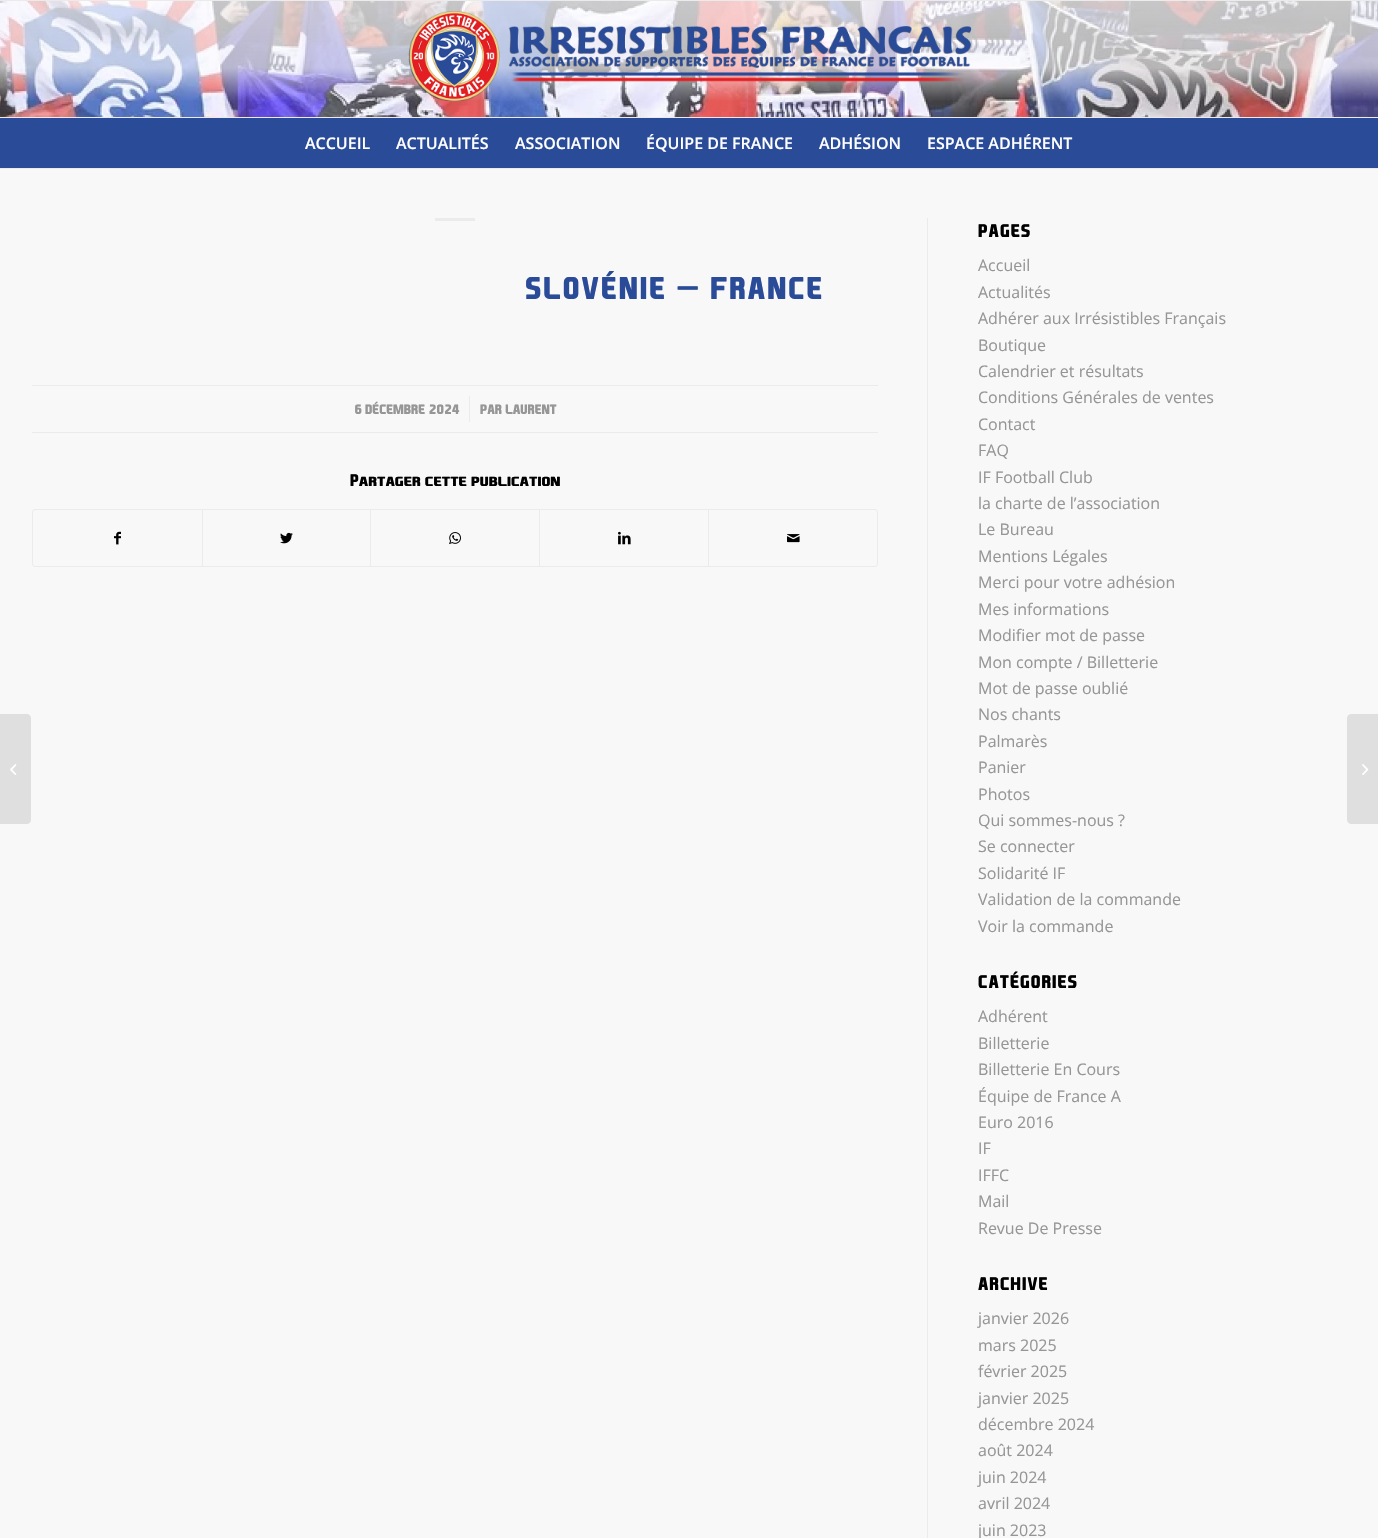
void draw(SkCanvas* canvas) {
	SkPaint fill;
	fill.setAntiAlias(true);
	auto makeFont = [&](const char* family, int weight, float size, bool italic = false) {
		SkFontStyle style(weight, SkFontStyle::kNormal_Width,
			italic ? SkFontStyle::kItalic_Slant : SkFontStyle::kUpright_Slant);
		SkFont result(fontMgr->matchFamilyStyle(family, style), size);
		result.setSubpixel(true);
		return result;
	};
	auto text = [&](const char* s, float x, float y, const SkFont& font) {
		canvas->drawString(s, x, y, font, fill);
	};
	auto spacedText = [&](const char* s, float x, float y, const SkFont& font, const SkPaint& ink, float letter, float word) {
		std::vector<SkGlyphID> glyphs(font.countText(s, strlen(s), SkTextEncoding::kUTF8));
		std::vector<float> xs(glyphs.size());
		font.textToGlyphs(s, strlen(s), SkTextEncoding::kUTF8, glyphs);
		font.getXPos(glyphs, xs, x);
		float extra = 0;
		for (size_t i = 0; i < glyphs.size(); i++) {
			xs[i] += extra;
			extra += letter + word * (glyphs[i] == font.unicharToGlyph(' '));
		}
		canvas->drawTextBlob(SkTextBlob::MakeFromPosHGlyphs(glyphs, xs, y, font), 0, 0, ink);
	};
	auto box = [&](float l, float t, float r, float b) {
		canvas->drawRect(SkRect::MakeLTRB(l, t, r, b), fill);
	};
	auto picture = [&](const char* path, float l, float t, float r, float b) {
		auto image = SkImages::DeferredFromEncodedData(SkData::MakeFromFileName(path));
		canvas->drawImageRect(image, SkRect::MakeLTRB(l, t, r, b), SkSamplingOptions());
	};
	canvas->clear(0xFFF8F8F8);
	picture("image0.png", 0, 1, 1378, 117);
	fill.setColor(0xFFEBEBEB);
	box(0, 0, 1378, 1);
	box(0, 168, 1378, 169);
	{
		const SkColor colors[] = {0xBFFFFFFF, 0xADFFFFFF, 0x2BFFFFFF};
		const float stops[] = {0, 0.4f, 0.6f};
		const SkPoint ends[] = {{689, 1}, {689, 168}};
		fill.setShader(SkGradientShader::MakeLinear(ends, colors, stops, 3, SkTileMode::kClamp));
		fill.setAlpha(255);
	}
	box(0, 1, 1378, 117);
	picture("image1.png", 408, 11, 972, 101);
	fill.setShader(nullptr);
	fill.setColor(0xFF2A4B98);
	box(0, 118, 1378, 168);
	fill.setColor(0xFFEBEBEB);
	box(0, 117, 1378, 118);
	fill.setColor(0xFFDFDFDF);
	canvas->drawPath(SkPathBuilder().moveTo(0, 714).lineTo(27, 714).cubicTo(29, 714, 31, 716, 31, 718).lineTo(31, 820).cubicTo(31, 822, 29, 824, 27, 824).lineTo(0, 824).close().detach(), fill);
	picture("image2.png", 10, 764, 17, 775);
	fill.setColor(0xFFEBEBEB);
	box(435, 218, 475, 221);
	box(32, 385, 878, 386);
	box(32, 432, 878, 433);
	box(469, 396, 470, 422);
	fill.setStyle(SkPaint::kStroke_Style);
	fill.setStrokeWidth(1);
	canvas->drawRoundRect(SkRect::MakeLTRB(32.5f, 509.5f, 877.5f, 566.5f), 2.5f, 2.5f, fill);
	picture("image3.png", 114, 531, 121, 545);
	fill.setStyle(SkPaint::kFill_Style);
	box(202, 510, 203, 566);
	picture("image4.png", 280, 532, 293, 544);
	box(370, 510, 371, 566);
	picture("image5.png", 449, 532, 461, 545);
	box(539, 510, 540, 566);
	picture("image6.png", 618, 531, 631, 545);
	box(708, 510, 709, 566);
	picture("image7.png", 787, 534, 800, 543);
	box(927, 218, 928, 1538);
	fill.setColor(0xFFDFDFDF);
	canvas->drawPath(SkPathBuilder().moveTo(1351, 714).lineTo(1378, 714).lineTo(1378, 824).lineTo(1351, 824).cubicTo(1349, 824, 1347, 822, 1347, 820).lineTo(1347, 718).cubicTo(1347, 716, 1349, 714, 1351, 714).close().detach(), fill);
	picture("image8.png", 1362, 764, 1369, 775);
	auto font1 = makeFont("Open Sans", 600, 16);
	fill.setColor(0xFFFFFFFF);
	text("ACCUEIL", 305, 149, font1);
	text("ACTUALITÉS", 396, 149, font1);
	text("ASSOCIATION", 515, 149, font1);
	text("ÉQUIPE DE FRANCE", 646, 149, font1);
	text("ADHÉSION", 819, 149, font1);
	text("ESPACE ADHÉRENT", 927, 149, font1);
	auto font2 = makeFont("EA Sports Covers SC", 700, 30);
	fill.setColor(0xFF2A4B98);
	spacedText("SLOVÉNIE – FRANCE", 525, 299, font2, fill, 2, 0);
	auto font3 = makeFont("EA Sports Covers SC", 700, 13);
	fill.setColor(0xFF969696);
	text("6 DÉCEMBRE 2024", 354, 414, font3);
	text("PAR LAURENT", 480, 414, font3);
	auto font4 = makeFont("EA Sports Covers SC", 700, 16);
	fill.setColor(0xFF000000);
	text("Partager cette publication", 350, 486, font4);
	auto font5 = makeFont("EA Sports Covers SC", 700, 17.5f);
	spacedText("PAGES", 978, 237, font5, fill, 1, 0);
	auto font6 = makeFont("Open Sans", 400, 16);
	fill.setColor(0xFF969696);
	text("Accueil", 978, 271, font6);
	text("Actualités", 978, 298, font6);
	text("Adhérer aux Irrésistibles Français", 978, 324, font6);
	text("Boutique", 978, 351, font6);
	text("Calendrier et résultats", 978, 377, font6);
	text("Conditions Générales de ventes", 978, 403, font6);
	text("Contact", 978, 430, font6);
	text("FAQ", 978, 456, font6);
	text("IF Football Club", 978, 483, font6);
	text("la charte de l’association", 978, 509, font6);
	text("Le Bureau", 978, 535, font6);
	text("Mentions Légales", 978, 562, font6);
	text("Merci pour votre adhésion", 978, 588, font6);
	text("Mes informations", 978, 615, font6);
	text("Modifier mot de passe", 978, 641, font6);
	text("Mon compte / Billetterie", 978, 668, font6);
	text("Mot de passe oublié", 978, 694, font6);
	text("Nos chants", 978, 720, font6);
	text("Palmarès", 978, 747, font6);
	text("Panier", 978, 773, font6);
	text("Photos", 978, 800, font6);
	text("Qui sommes-nous ?", 978, 826, font6);
	text("Se connecter", 978, 852, font6);
	text("Solidarité IF", 978, 879, font6);
	text("Validation de la commande", 978, 905, font6);
	text("Voir la commande", 978, 932, font6);
	fill.setColor(0xFF000000);
	spacedText("CATÉGORIES", 978, 988, font5, fill, 1, 0);
	fill.setColor(0xFF969696);
	text("Adhérent", 978, 1022, font6);
	text("Billetterie", 978, 1049, font6);
	text("Billetterie En Cours", 978, 1075, font6);
	text("Équipe de France A", 978, 1102, font6);
	text("Euro 2016", 978, 1128, font6);
	text("IF", 978, 1154, font6);
	text("IFFC", 978, 1181, font6);
	text("Mail", 978, 1207, font6);
	text("Revue De Presse", 978, 1234, font6);
	fill.setColor(0xFF000000);
	spacedText("ARCHIVE", 978, 1290, font5, fill, 1, 0);
	fill.setColor(0xFF969696);
	text("janvier 2026", 978, 1324, font6);
	text("mars 2025", 978, 1351, font6);
	text("février 2025", 978, 1377, font6);
	text("janvier 2025", 978, 1404, font6);
	text("décembre 2024", 978, 1430, font6);
	text("août 2024", 978, 1456, font6);
	text("juin 2024", 978, 1483, font6);
	text("avril 2024", 978, 1509, font6);
	text("juin 2023", 978, 1536, font6);
}
